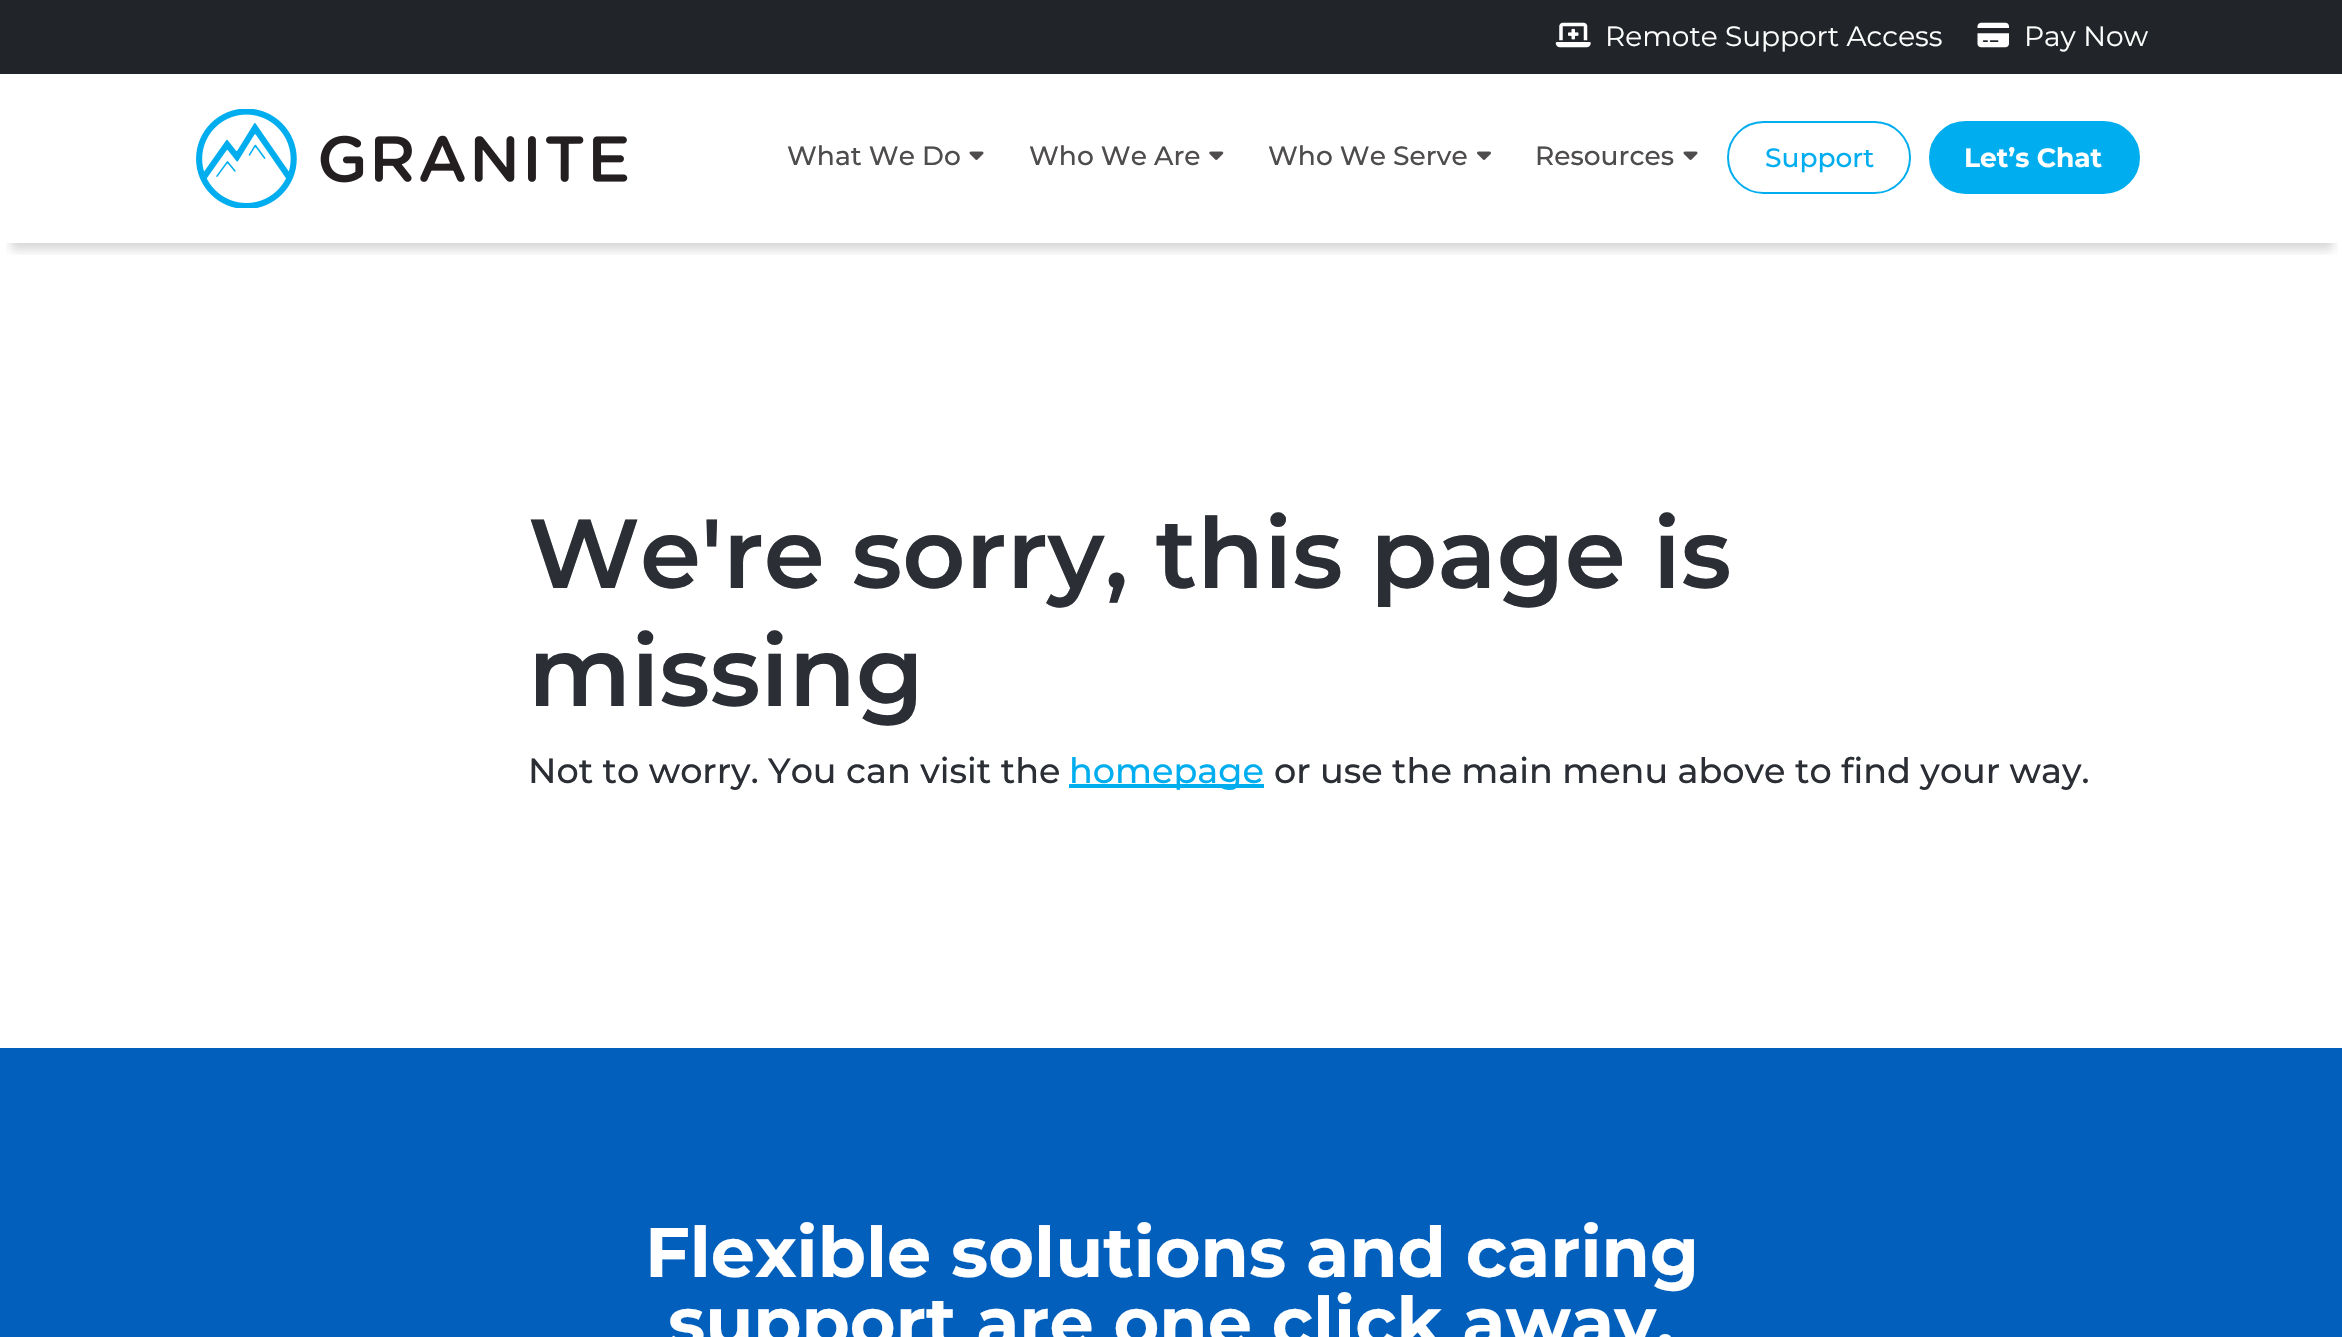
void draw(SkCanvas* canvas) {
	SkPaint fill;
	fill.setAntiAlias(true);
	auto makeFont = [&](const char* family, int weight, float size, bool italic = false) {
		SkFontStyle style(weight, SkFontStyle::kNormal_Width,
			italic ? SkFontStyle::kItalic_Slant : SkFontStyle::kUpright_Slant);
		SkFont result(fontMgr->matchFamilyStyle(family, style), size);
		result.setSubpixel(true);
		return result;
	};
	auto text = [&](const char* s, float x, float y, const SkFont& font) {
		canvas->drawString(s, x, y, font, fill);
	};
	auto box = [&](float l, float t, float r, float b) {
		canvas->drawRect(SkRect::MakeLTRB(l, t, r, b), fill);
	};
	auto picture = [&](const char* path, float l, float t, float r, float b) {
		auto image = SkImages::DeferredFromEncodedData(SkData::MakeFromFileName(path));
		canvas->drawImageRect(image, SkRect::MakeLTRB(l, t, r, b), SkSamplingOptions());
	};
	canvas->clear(0xFFFFFFFF);
	fill.setColor(0xFF212529);
	box(0, 0, 2342, 74);
	picture("image0.png", 1555, 22, 1591, 48);
	picture("image1.png", 1977, 22, 2009, 48);
	canvas->save();
	canvas->clipRect(SkRect::MakeLTRB(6, 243, 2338, 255));
	fill.setColor(0x26000000);
	fill.setMaskFilter(SkMaskFilter::MakeBlur(kNormal_SkBlurStyle, 4.5f));
	canvas->drawRect(SkRect::MakeLTRB(11, 102, 2333, 250), fill);
	fill.setMaskFilter(nullptr);
	canvas->restore();
	picture("image2.png", 196, 109, 628, 208);
	picture("image3.png", 969, 151, 984, 160);
	picture("image4.png", 1209, 151, 1224, 160);
	picture("image5.png", 1477, 151, 1491, 160);
	picture("image3.png", 1683, 151, 1698, 160);
	fill.setStyle(SkPaint::kStroke_Style);
	fill.setStrokeWidth(2);
	fill.setColor(0xFF00ADEE);
	canvas->drawRoundRect(SkRect::MakeLTRB(1728, 122, 1910, 193), 35.5f, 35.5f, fill);
	fill.setStyle(SkPaint::kFill_Style);
	canvas->drawRoundRect(SkRect::MakeLTRB(1930, 122, 2139, 193), 35.5f, 35.5f, fill);
	fill.setStyle(SkPaint::kStroke_Style);
	canvas->drawRoundRect(SkRect::MakeLTRB(1930, 122, 2139, 193), 35.5f, 35.5f, fill);
	fill.setStyle(SkPaint::kFill_Style);
	box(1069, 784, 1264, 788);
	fill.setColor(0xFF025FBC);
	box(0, 1048, 2342, 1337);
	auto font1 = makeFont("Montserrat", 400, 28);
	fill.setColor(0xFFFFFFFF);
	text("Remote Support Access", 1605, 46, font1);
	text("Pay Now", 2024, 46, font1);
	auto font2 = makeFont("Montserrat", 500, 26.5f);
	fill.setColor(0xFF4F4C4D);
	text("What We Do", 787, 165, font2);
	text("Who We Are", 1029, 165, font2);
	text("Who We Serve", 1268, 165, font2);
	text("Resources", 1535, 165, font2);
	fill.setColor(0xFF00ADEE);
	text("Support", 1765, 167, font2);
	auto font3 = makeFont("Montserrat", 700, 26.5f);
	fill.setColor(0xFFFFFFFF);
	text("Let’s Chat", 1964, 167, font3);
	auto font4 = makeFont("Montserrat", 600, 98);
	fill.setColor(0xFF2B2F35);
	text("We're sorry, this page is", 528, 588, font4);
	text("missing", 528, 706, font4);
	auto font5 = makeFont("Montserrat", 500, 35);
	text("Not to worry. You can visit the", 528, 783, font5);
	fill.setColor(0xFF00ADEE);
	text("homepage", 1069, 783, font5);
	fill.setColor(0xFF2B2F35);
	text("or use the main menu above to find your way.", 1274, 783, font5);
	auto font6 = makeFont("Montserrat", 700, 70);
	fill.setColor(0xFFFFFFFF);
	text("Flexible solutions and caring", 645, 1277, font6);
	text("support are one click away.", 668, 1347, font6);
}
